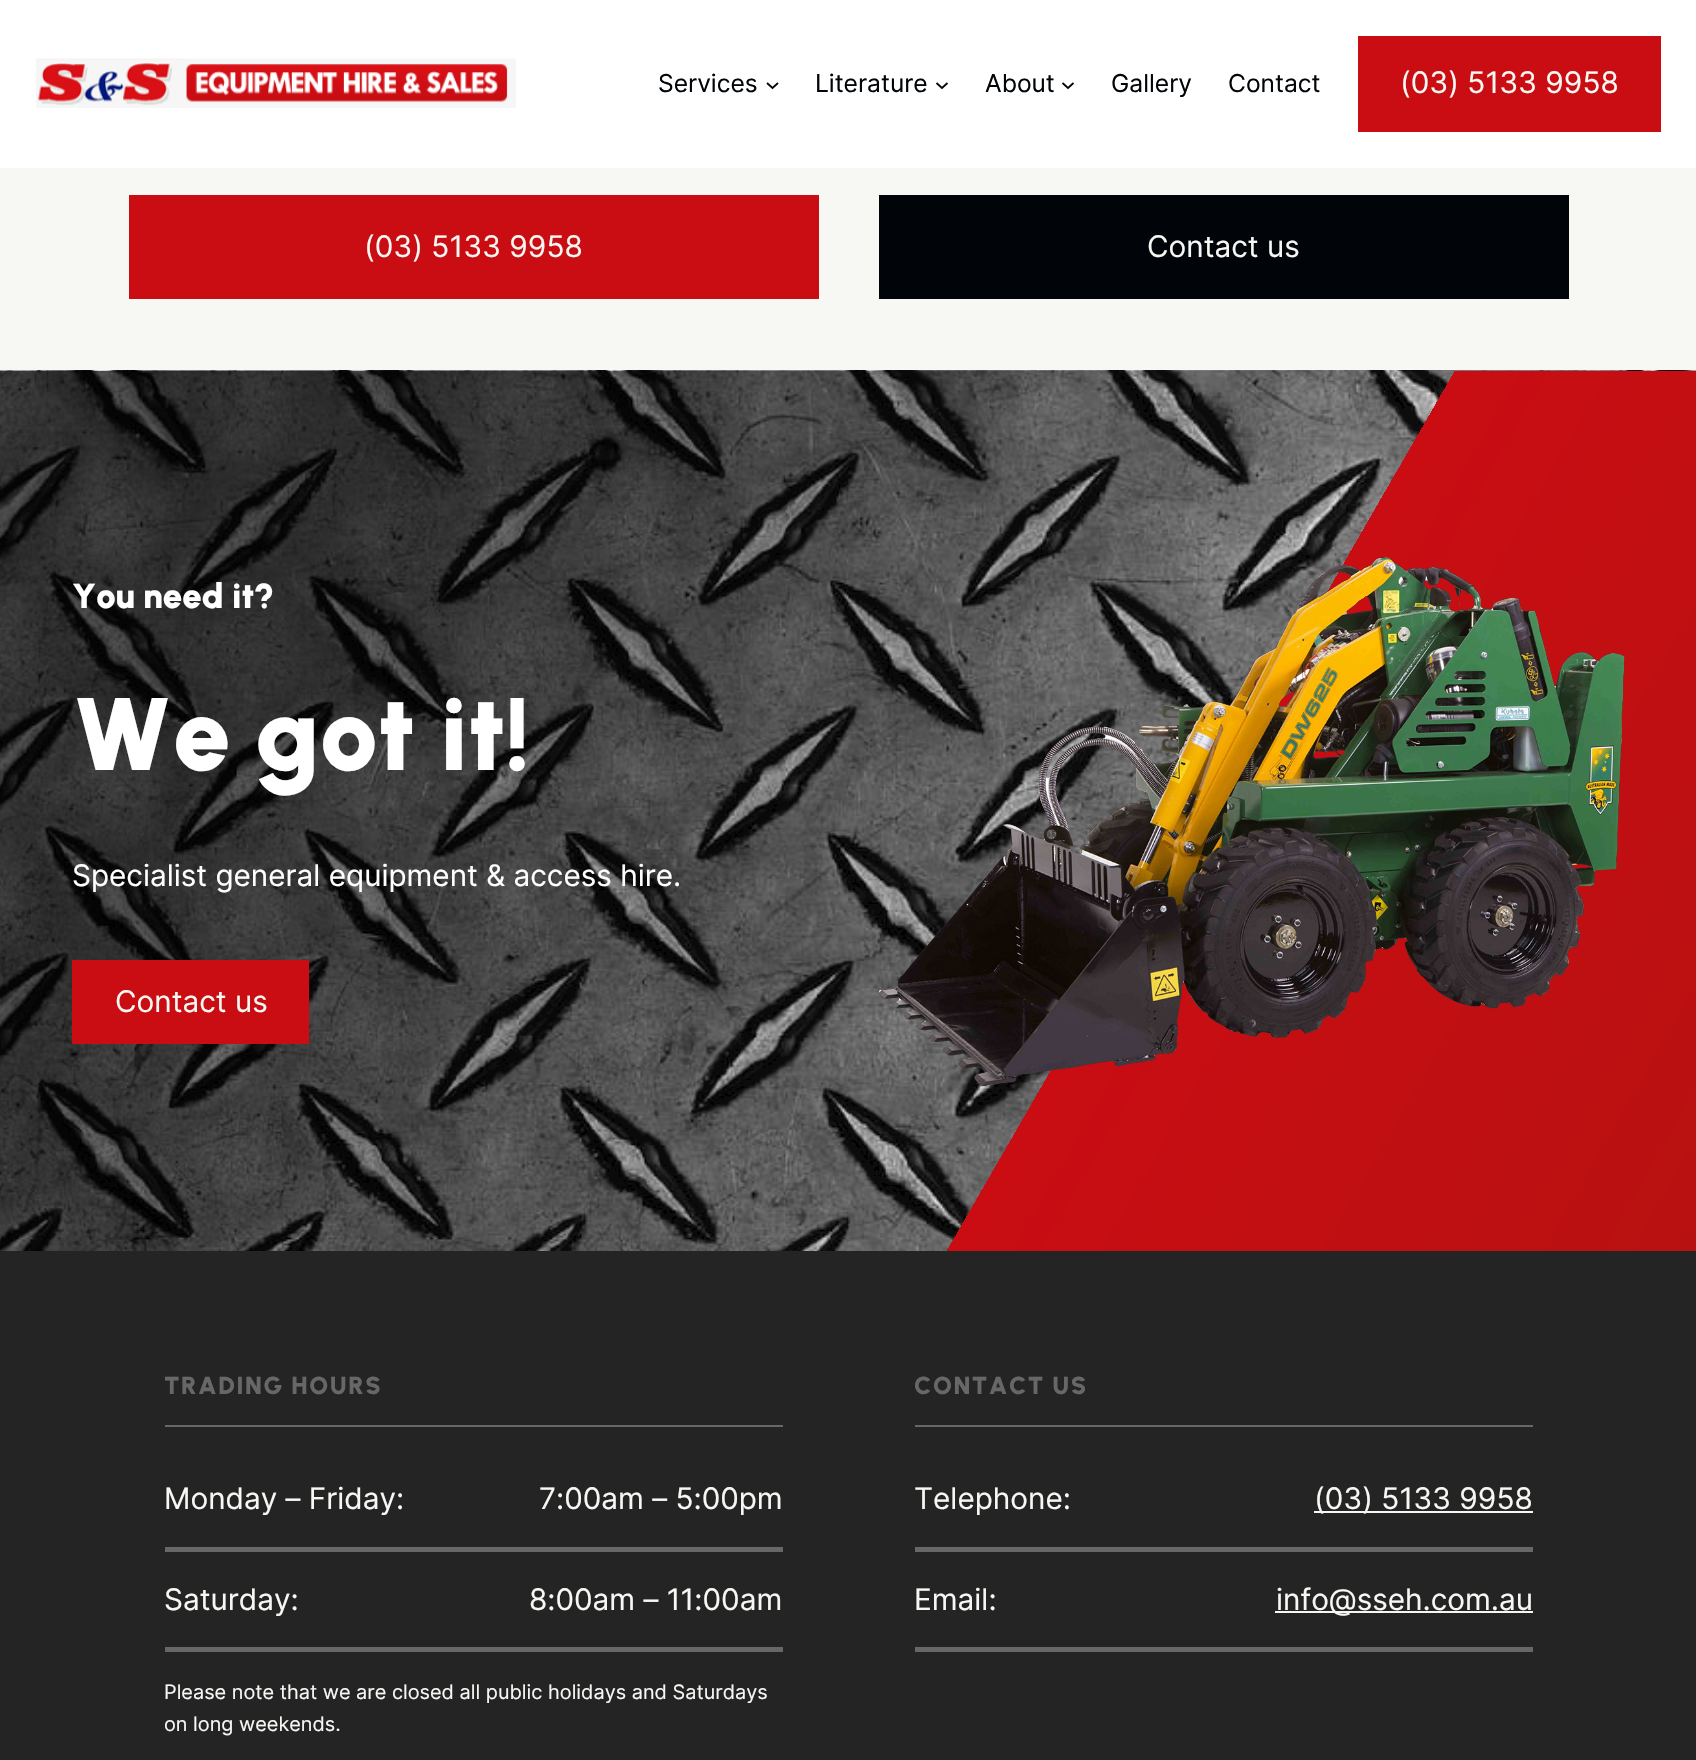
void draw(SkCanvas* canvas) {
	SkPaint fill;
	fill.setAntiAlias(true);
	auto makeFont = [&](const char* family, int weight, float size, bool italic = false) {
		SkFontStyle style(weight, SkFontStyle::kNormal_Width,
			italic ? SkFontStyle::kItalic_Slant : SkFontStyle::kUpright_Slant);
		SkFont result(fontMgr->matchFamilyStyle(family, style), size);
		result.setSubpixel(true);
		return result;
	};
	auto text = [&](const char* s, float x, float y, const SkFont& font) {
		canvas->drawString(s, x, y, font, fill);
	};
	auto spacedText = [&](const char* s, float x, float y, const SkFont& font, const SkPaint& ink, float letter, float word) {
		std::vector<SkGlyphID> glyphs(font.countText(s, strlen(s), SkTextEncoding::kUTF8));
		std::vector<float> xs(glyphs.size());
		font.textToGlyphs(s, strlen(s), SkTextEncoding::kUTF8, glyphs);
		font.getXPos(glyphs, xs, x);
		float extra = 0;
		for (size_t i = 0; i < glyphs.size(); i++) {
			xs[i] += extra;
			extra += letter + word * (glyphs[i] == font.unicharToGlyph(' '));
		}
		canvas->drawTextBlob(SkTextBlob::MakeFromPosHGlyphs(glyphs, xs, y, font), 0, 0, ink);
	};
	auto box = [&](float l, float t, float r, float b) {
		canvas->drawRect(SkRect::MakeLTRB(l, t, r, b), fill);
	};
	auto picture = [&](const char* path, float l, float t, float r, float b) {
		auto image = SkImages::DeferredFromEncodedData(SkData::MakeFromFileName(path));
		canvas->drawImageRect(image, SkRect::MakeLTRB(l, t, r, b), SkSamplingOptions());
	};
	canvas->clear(0xFFF7F8F4);
	fill.setColor(0xFFFFFFFF);
	box(0, 0, 1696, 168);
	picture("image0.png", 36, 58, 516, 108);
	fill.setStyle(SkPaint::kStroke_Style);
	fill.setStrokeWidth(1.8f);
	fill.setColor(0xFF010409);
	canvas->drawPath(SkPathBuilder().moveTo(767, 83).lineTo(772.5f, 88).lineTo(778, 83).detach(), fill);
	canvas->drawPath(SkPathBuilder().moveTo(936.5f, 83).lineTo(942, 88).lineTo(947.5f, 83).detach(), fill);
	canvas->drawPath(SkPathBuilder().moveTo(1062.5f, 83).lineTo(1068, 88).lineTo(1073.5f, 83).detach(), fill);
	fill.setStyle(SkPaint::kFill_Style);
	fill.setColor(0xFFC90D13);
	box(1358, 36, 1661, 132);
	box(129, 195, 819, 299);
	fill.setColor(0xFF010409);
	box(879, 195, 1569, 299);
	picture("image1.png", 0, 370, 1696, 1251);
	fill.setColor(0xFFC90D13);
	box(72, 960, 309, 1044);
	picture("image2.png", 879, 557, 1625, 1086);
	fill.setColor(0xFF242424);
	box(0, 1251, 1696, 1760);
	fill.setColor(0xFF676767);
	box(165, 1425, 783, 1427);
	box(165, 1547, 783, 1552);
	box(165, 1647, 783, 1652);
	box(915, 1425, 1533, 1427);
	box(915, 1547, 1533, 1552);
	fill.setColor(0xFFF7F8F4);
	box(1314, 1511, 1533, 1513);
	fill.setColor(0xFF676767);
	box(915, 1647, 1533, 1652);
	fill.setColor(0xFFF7F8F4);
	box(1275, 1611, 1533, 1613);
	auto font1 = makeFont("Inter", 400, 24.6f);
	fill.setColor(0xFF010409);
	text("Services", 658, 92, font1);
	text("Literature", 815, 92, font1);
	text("About", 985, 92, font1);
	text("Gallery", 1111, 92, font1);
	text("Contact", 1228, 92, font1);
	auto font2 = makeFont("Inter", 400, 29.7f);
	fill.setColor(0xFFF7F8F4);
	text("(03) 5133 9958", 1400, 93, font2);
	text("(03) 5133 9958", 364, 257, font2);
	text("Contact us", 1147, 257, font2);
	auto font3 = makeFont("Urbanist", 900, 34.75f, true);
	fill.setColor(0xFFFFFFFF);
	text("You need it?", 72, 608, font3);
	auto font4 = makeFont("Urbanist", 900, 103, true);
	text("We got it!", 72, 770, font4);
	text("Specialist general equipment & access hire.", 72, 886, font2);
	fill.setColor(0xFFF7F8F4);
	text("Contact us", 115, 1012, font2);
	auto font5 = makeFont("Urbanist", 900, 24.6f, true);
	fill.setColor(0xFF676767);
	spacedText("TRADING HOURS", 164, 1394, font5, fill, 1.5f, 0);
	fill.setColor(0xFFF7F8F4);
	text("Monday – Friday:", 164, 1509, font2);
	text("7:00am – 5:00pm", 539, 1509, font2);
	text("Saturday:", 164, 1610, font2);
	text("8:00am – 11:00am", 529, 1610, font2);
	auto font6 = makeFont("Inter", 400, 19.9f);
	text("Please note that we are closed all public holidays and Saturdays", 164, 1699, font6);
	text("on long weekends.", 164, 1731, font6);
	fill.setColor(0xFF676767);
	spacedText("CONTACT US", 914, 1394, font5, fill, 1.5f, 0);
	fill.setColor(0xFFF7F8F4);
	text("Telephone:", 914, 1509, font2);
	text("(03) 5133 9958", 1314, 1509, font2);
	text("Email:", 914, 1610, font2);
	text("info@sseh.com.au", 1276, 1610, font2);
}
